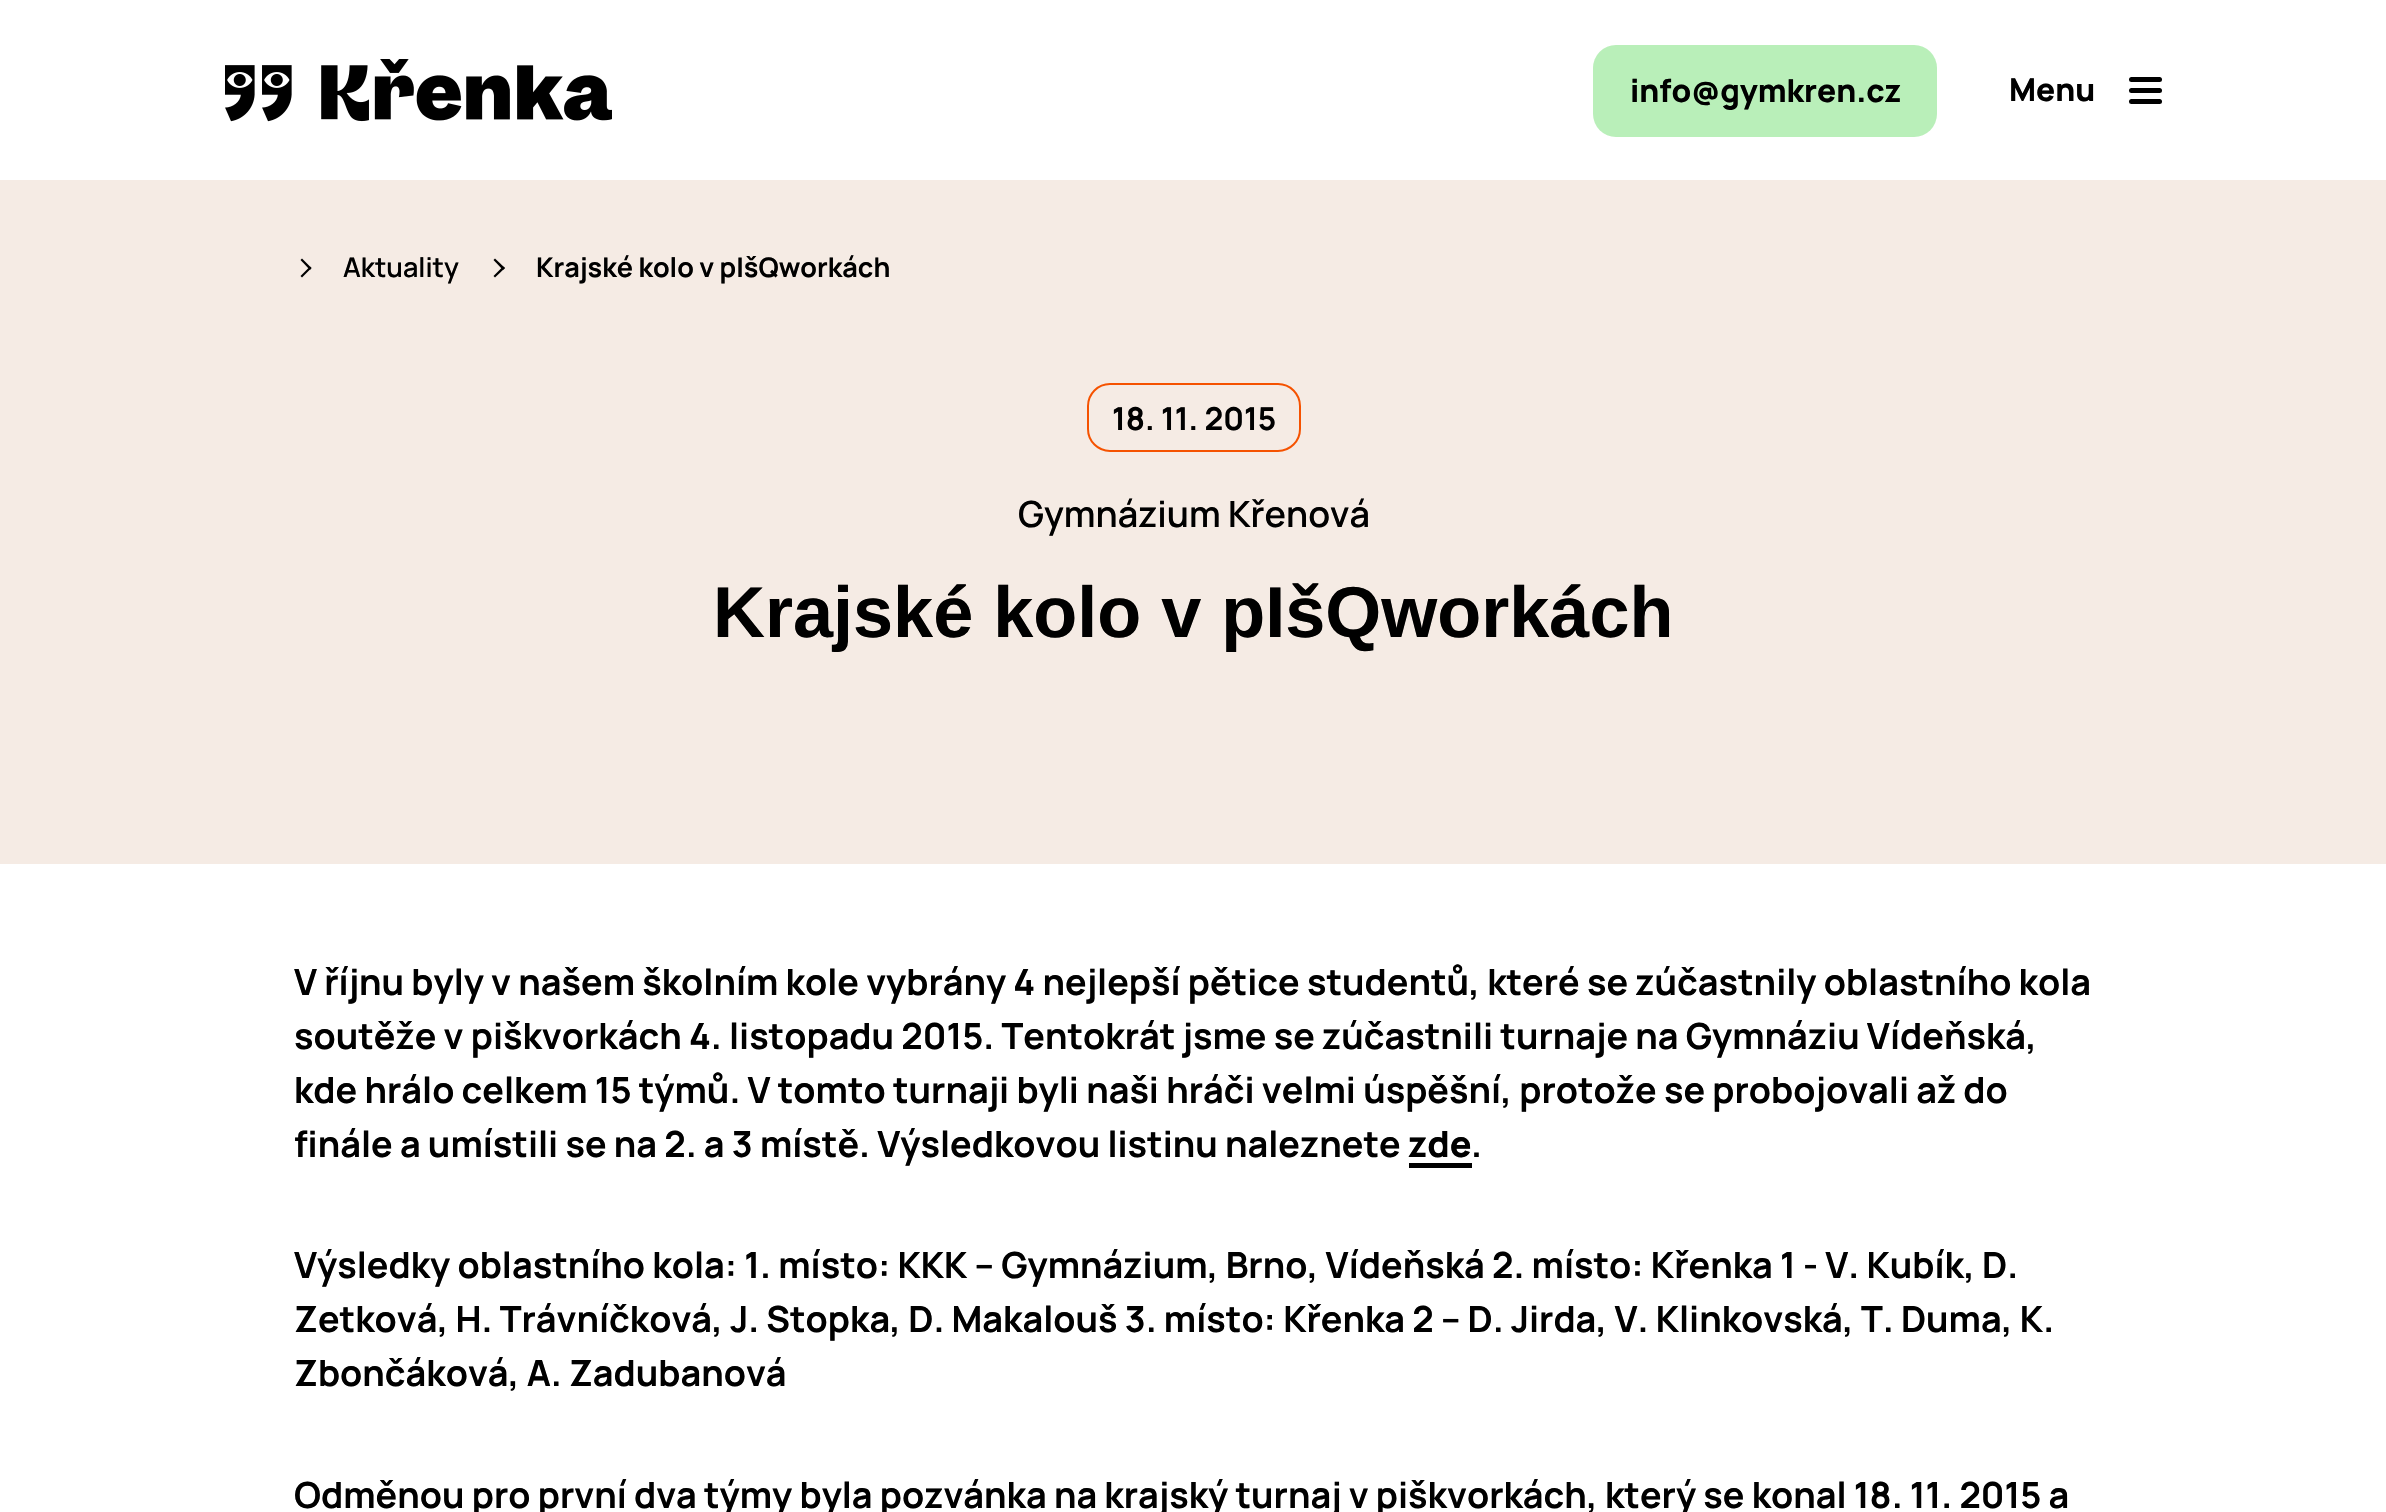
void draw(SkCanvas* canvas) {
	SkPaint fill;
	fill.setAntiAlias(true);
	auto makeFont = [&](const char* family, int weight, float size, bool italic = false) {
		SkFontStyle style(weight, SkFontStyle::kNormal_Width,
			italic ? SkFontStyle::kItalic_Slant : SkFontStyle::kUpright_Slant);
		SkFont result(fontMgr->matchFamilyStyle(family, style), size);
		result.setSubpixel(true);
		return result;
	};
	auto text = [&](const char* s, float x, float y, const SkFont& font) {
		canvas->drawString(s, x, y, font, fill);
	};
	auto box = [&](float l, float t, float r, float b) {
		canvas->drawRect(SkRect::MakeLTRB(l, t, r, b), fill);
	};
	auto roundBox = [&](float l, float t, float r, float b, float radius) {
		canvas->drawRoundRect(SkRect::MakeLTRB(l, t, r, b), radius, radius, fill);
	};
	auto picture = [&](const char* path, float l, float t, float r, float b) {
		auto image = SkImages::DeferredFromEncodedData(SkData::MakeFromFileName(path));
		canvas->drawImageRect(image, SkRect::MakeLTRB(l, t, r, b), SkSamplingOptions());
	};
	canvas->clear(0xFFFFFFFF);
	picture("image0.png", 225, 59, 612, 122);
	fill.setColor(0xFFB9EFB9);
	roundBox(1593, 45, 1937, 137, 23);
	fill.setColor(0xFF000000);
	roundBox(2129, 77, 2162, 82, 2.5f);
	roundBox(2129, 88, 2162, 93, 2.5f);
	roundBox(2129, 99, 2162, 104, 2.5f);
	fill.setColor(0xFFF5EBE4);
	box(0, 180, 2386, 864);
	fill.setColor(0xFF000000);
	canvas->drawPath(SkPathBuilder().moveTo(300.5f, 260).lineTo(302, 258.5f).lineTo(311.5f, 268).lineTo(310, 270).close().detach(), fill);
	canvas->drawPath(SkPathBuilder().moveTo(300.5f, 276).lineTo(310, 266.5f).lineTo(311.5f, 268).lineTo(302, 277.5f).close().detach(), fill);
	canvas->drawPath(SkPathBuilder().moveTo(493.5f, 260).lineTo(495, 258.5f).lineTo(505, 268).lineTo(503, 270).close().detach(), fill);
	canvas->drawPath(SkPathBuilder().moveTo(493.5f, 276).lineTo(503, 266.5f).lineTo(505, 268).lineTo(495, 277.5f).close().detach(), fill);
	fill.setStyle(SkPaint::kStroke_Style);
	fill.setStrokeWidth(2);
	fill.setColor(0xFFF55200);
	canvas->drawRoundRect(SkRect::MakeLTRB(1088, 384, 1300, 451), 22, 22, fill);
	fill.setStyle(SkPaint::kFill_Style);
	fill.setColor(0xFF000000);
	box(1409, 1163, 1472, 1168);
	auto font1 = makeFont("Manrope", 800, 31.5f);
	text("info@gymkren.cz", 1630, 102, font1);
	text("Menu", 2009, 101, font1);
	auto font2 = makeFont("Manrope", 600, 27);
	text("Aktuality", 343, 277, font2);
	auto font3 = makeFont("Manrope", 700, 27);
	text("Krajské kolo v pIšQworkách", 536, 277, font3);
	auto font4 = makeFont("Manrope", 700, 31.5f);
	text("18. 11. 2015", 1112, 430, font4);
	auto font5 = makeFont("Manrope", 600, 36);
	text("Gymnázium Křenová", 1018, 527, font5);
	auto font6 = makeFont("Liberation Sans", 700, 72);
	text("Krajské kolo v pIšQworkách", 713, 637, font6);
	auto font7 = makeFont("Manrope", 700, 36);
	text("V říjnu byly v našem školním kole vybrány 4 nejlepší pětice studentů, které se zúčastnily oblastního kola", 294, 995, font7);
	text("soutěže v piškvorkách 4. listopadu 2015. Tentokrát jsme se zúčastnili turnaje na Gymnáziu Vídeňská,", 294, 1049, font7);
	text("kde hrálo celkem 15 týmů. V tomto turnaji byli naši hráči velmi úspěšní, protože se probojovali až do", 294, 1103, font7);
	text("finále a umístili se na 2. a 3 místě. Výsledkovou listinu naleznete", 294, 1157, font7);
	auto font8 = makeFont("Manrope", 800, 36);
	text("zde", 1408, 1157, font8);
	text(".", 1471, 1157, font7);
	text("Výsledky oblastního kola: 1. místo: KKK – Gymnázium, Brno, Vídeňská 2. místo: Křenka 1 - V. Kubík, D.", 294, 1278, font7);
	text("Zetková, H. Trávníčková, J. Stopka, D. Makalouš 3. místo: Křenka 2 – D. Jirda, V. Klinkovská, T. Duma, K.", 294, 1332, font7);
	text("Zbončáková, A. Zadubanová", 294, 1386, font7);
	text("Odměnou pro první dva týmy byla pozvánka na krajský turnaj v piškvorkách, který se konal 18. 11. 2015 a", 294, 1508, font7);
}
